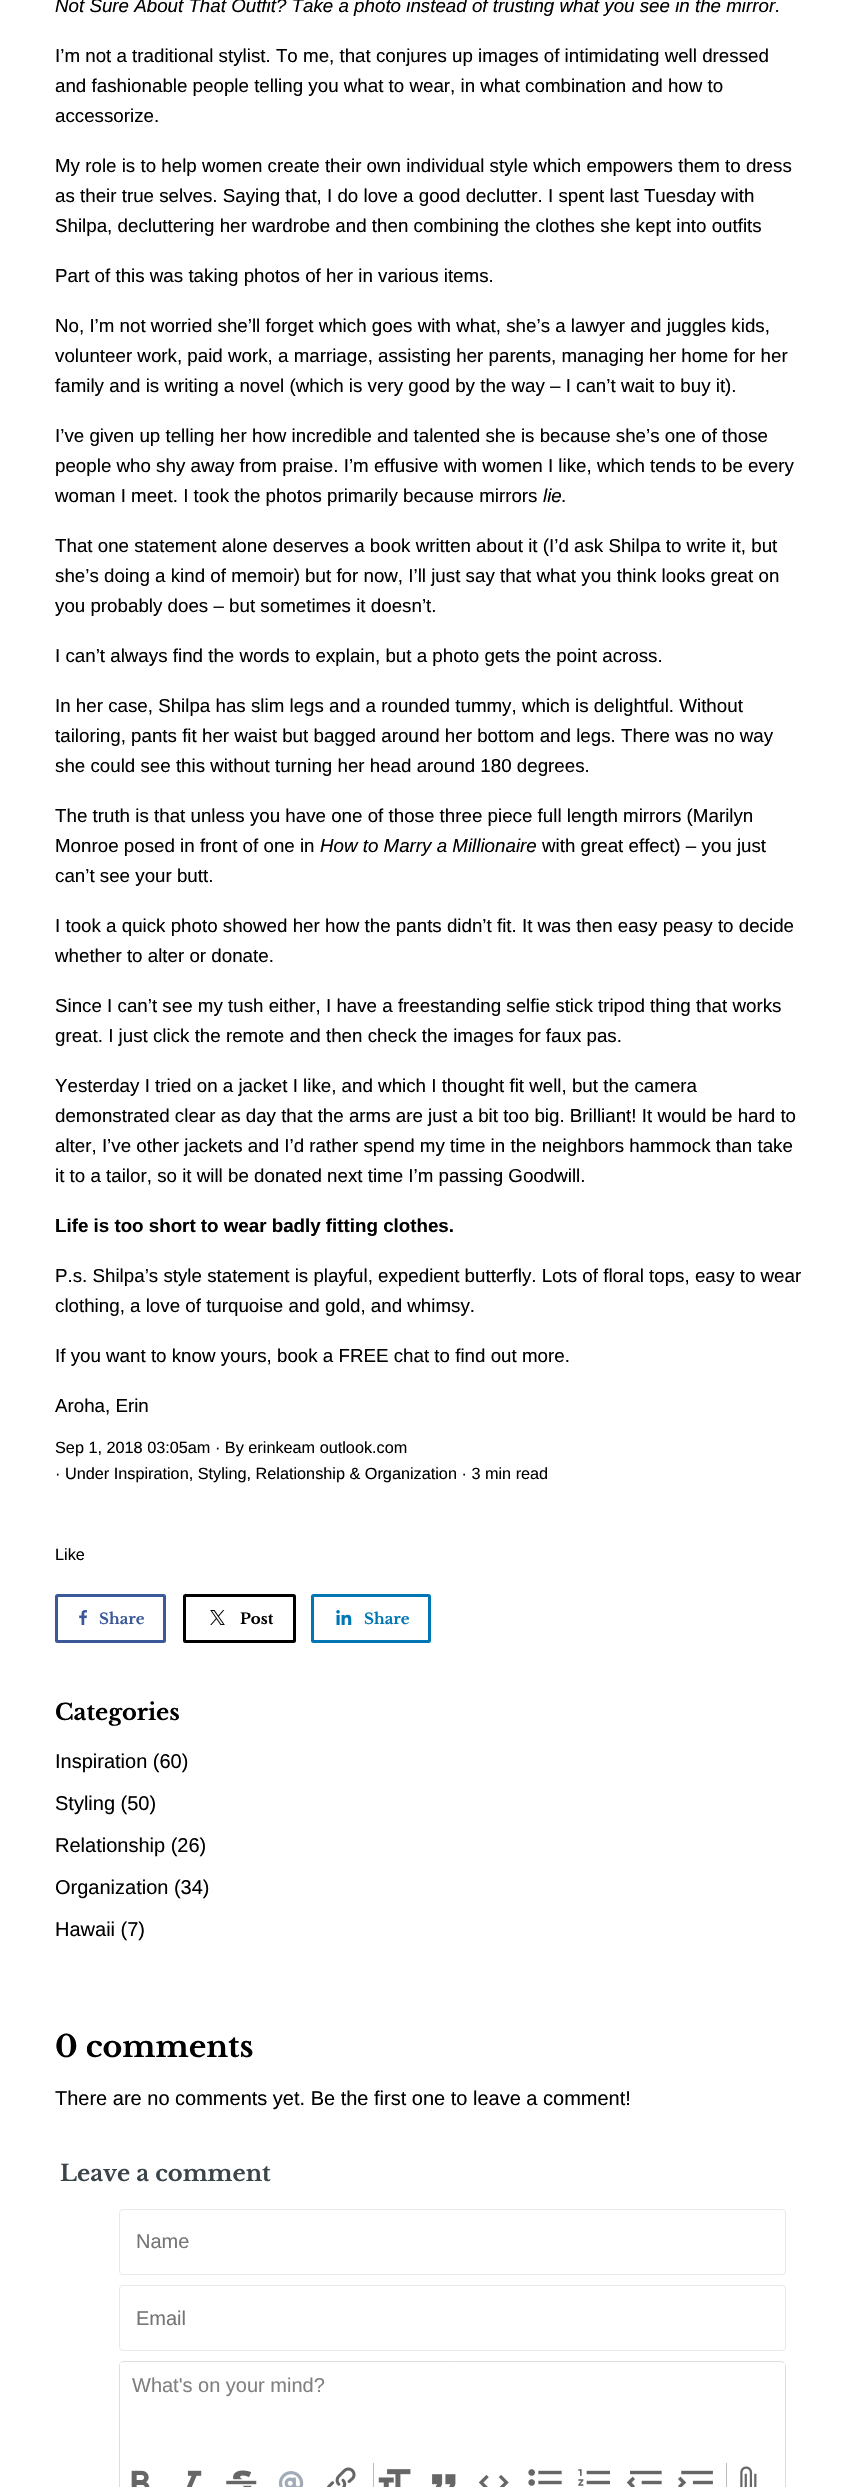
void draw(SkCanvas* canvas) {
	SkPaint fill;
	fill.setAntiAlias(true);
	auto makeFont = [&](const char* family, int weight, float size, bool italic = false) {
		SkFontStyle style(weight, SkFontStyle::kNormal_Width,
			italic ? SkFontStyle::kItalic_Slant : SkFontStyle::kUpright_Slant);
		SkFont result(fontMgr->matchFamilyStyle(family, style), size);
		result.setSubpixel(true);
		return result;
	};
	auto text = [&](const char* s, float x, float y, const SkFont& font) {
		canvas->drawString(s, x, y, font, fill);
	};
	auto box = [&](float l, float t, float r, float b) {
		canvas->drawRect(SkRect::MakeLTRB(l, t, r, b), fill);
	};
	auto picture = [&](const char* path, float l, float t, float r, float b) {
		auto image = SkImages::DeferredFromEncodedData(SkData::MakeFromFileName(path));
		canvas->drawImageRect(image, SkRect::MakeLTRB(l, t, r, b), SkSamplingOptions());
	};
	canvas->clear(0xFFFFFFFF);
	fill.setStyle(SkPaint::kStroke_Style);
	fill.setStrokeWidth(3);
	fill.setColor(0xFF3B5998);
	canvas->drawRoundRect(SkRect::MakeLTRB(56.5f, 1595.5f, 164.5f, 1641.5f), 1, 1, fill);
	picture("image0.png", 79, 1610, 87, 1625);
	fill.setColor(0xFF000000);
	canvas->drawRoundRect(SkRect::MakeLTRB(184.5f, 1595.5f, 294.5f, 1641.5f), 1, 1, fill);
	picture("image1.png", 210, 1610, 225, 1625);
	fill.setColor(0xFF0077B5);
	canvas->drawRoundRect(SkRect::MakeLTRB(312.5f, 1595.5f, 429.5f, 1641.5f), 1, 1, fill);
	picture("image2.png", 336, 1610, 352, 1625);
	fill.setStrokeWidth(1);
	fill.setColor(0xFFE9E9E9);
	canvas->drawRoundRect(SkRect::MakeLTRB(119.5f, 2209.5f, 785.5f, 2274.5f), 3.5f, 3.5f, fill);
	canvas->drawRoundRect(SkRect::MakeLTRB(119.5f, 2285.5f, 785.5f, 2350.5f), 3.5f, 3.5f, fill);
	fill.setColor(0xFFDADDE2);
	canvas->drawRoundRect(SkRect::MakeLTRB(119.5f, 2361.5f, 785.5f, 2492.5f), 4.5f, 4.5f, fill);
	fill.setStyle(SkPaint::kFill_Style);
	fill.setColor(0xFFFFFFFF);
	box(120, 2363, 785, 2365);
	picture("image3.png", 131, 2470, 150, 2487);
	picture("image4.png", 187, 2470, 202, 2487);
	picture("image5.png", 226, 2470, 257, 2487);
	picture("image6.png", 278, 2471, 304, 2487);
	picture("image7.png", 327, 2467, 356, 2487);
	fill.setColor(0xFFBBBBBB);
	box(373, 2463, 374, 2487);
	picture("image8.png", 378, 2469, 411, 2487);
	picture("image9.png", 432, 2474, 456, 2487);
	picture("image10.png", 478, 2475, 509, 2487);
	picture("image11.png", 528, 2469, 562, 2486);
	picture("image12.png", 578, 2469, 610, 2486);
	picture("image13.png", 626, 2470, 662, 2487);
	picture("image14.png", 678, 2470, 713, 2487);
	box(726, 2463, 727, 2487);
	picture("image15.png", 740, 2466, 757, 2487);
	auto font1 = makeFont("Liberation Sans", 400, 18.75f, true);
	fill.setColor(0xFF000000);
	text("Not Sure About That Outfit? Take a photo instead of trusting what you see in the mirror.", 55, 12, font1);
	auto font2 = makeFont("Liberation Sans", 400, 18.75f);
	text("I’m not a traditional stylist. To me, that conjures up images of intimidating well dressed", 55, 62, font2);
	text("and fashionable people telling you what to wear, in what combination and how to", 55, 92, font2);
	text("accessorize.", 55, 122, font2);
	text("My role is to help women create their own individual style which empowers them to dress", 55, 172, font2);
	text("as their true selves. Saying that, I do love a good declutter. I spent last Tuesday with", 55, 202, font2);
	text("Shilpa, decluttering her wardrobe and then combining the clothes she kept into outfits", 55, 232, font2);
	text("Part of this was taking photos of her in various items.", 55, 282, font2);
	text("No, I’m not worried she’ll forget which goes with what, she’s a lawyer and juggles kids,", 55, 332, font2);
	text("volunteer work, paid work, a marriage, assisting her parents, managing her home for her", 55, 362, font2);
	text("family and is writing a novel (which is very good by the way – I can’t wait to buy it).", 55, 392, font2);
	text("I’ve given up telling her how incredible and talented she is because she’s one of those", 55, 442, font2);
	text("people who shy away from praise. I’m effusive with women I like, which tends to be every", 55, 472, font2);
	text("woman I meet. I took the photos primarily because mirrors", 55, 502, font2);
	text("lie", 543, 502, font1);
	text(".", 561, 502, font2);
	text("That one statement alone deserves a book written about it (I’d ask Shilpa to write it, but", 55, 552, font2);
	text("she’s doing a kind of memoir) but for now, I’ll just say that what you think looks great on", 55, 582, font2);
	text("you probably does – but sometimes it doesn’t.", 55, 612, font2);
	text("I can’t always find the words to explain, but a photo gets the point across.", 55, 662, font2);
	text("In her case, Shilpa has slim legs and a rounded tummy, which is delightful. Without", 55, 712, font2);
	text("tailoring, pants fit her waist but bagged around her bottom and legs. There was no way", 55, 742, font2);
	text("she could see this without turning her head around 180 degrees.", 55, 772, font2);
	text("The truth is that unless you have one of those three piece full length mirrors (Marilyn", 55, 822, font2);
	text("Monroe posed in front of one in", 55, 852, font2);
	text("How to Marry a Millionaire", 320, 852, font1);
	text("with great effect) – you just", 542, 852, font2);
	text("can’t see your butt.", 55, 882, font2);
	text("I took a quick photo showed her how the pants didn’t fit. It was then easy peasy to decide", 55, 932, font2);
	text("whether to alter or donate.", 55, 962, font2);
	text("Since I can’t see my tush either, I have a freestanding selfie stick tripod thing that works", 55, 1012, font2);
	text("great. I just click the remote and then check the images for faux pas.", 55, 1042, font2);
	text("Yesterday I tried on a jacket I like, and which I thought fit well, but the camera", 55, 1092, font2);
	text("demonstrated clear as day that the arms are just a bit too big. Brilliant! It would be hard to", 55, 1122, font2);
	text("alter, I’ve other jackets and I’d rather spend my time in the neighbors hammock than take", 55, 1152, font2);
	text("it to a tailor, so it will be donated next time I’m passing Goodwill.", 55, 1182, font2);
	auto font3 = makeFont("Liberation Sans", 700, 18.75f);
	text("Life is too short to wear badly fitting clothes.", 55, 1232, font3);
	text("P.s. Shilpa’s style statement is playful, expedient butterfly. Lots of floral tops, easy to wear", 55, 1282, font2);
	text("clothing, a love of turquoise and gold, and whimsy.", 55, 1312, font2);
	text("If you want to know yours, book a FREE chat to find out more.", 55, 1362, font2);
	text("Aroha, Erin", 55, 1412, font2);
	auto font4 = makeFont("Liberation Sans", 400, 16.25f);
	text("Sep 1, 2018 03:05am · By erinkeam outlook.com", 55, 1453, font4);
	text("· Under Inspiration, Styling, Relationship & Organization · 3 min read", 55, 1479, font4);
	text("Like", 55, 1560, font4);
	auto font5 = makeFont("Libre Baskerville", 700, 15);
	fill.setColor(0xFF3B5998);
	text("Share", 99, 1624, font5);
	fill.setColor(0xFF000000);
	text("Post", 240, 1624, font5);
	fill.setColor(0xFF0077B5);
	text("Share", 364, 1624, font5);
	auto font6 = makeFont("Libre Baskerville", 700, 22.5f);
	fill.setColor(0xFF000000);
	text("Categories", 55, 1720, font6);
	auto font7 = makeFont("Liberation Sans", 400, 20);
	text("Inspiration (60)", 55, 1768, font7);
	text("Styling (50)", 55, 1810, font7);
	text("Relationship (26)", 55, 1852, font7);
	text("Organization (34)", 55, 1894, font7);
	text("Hawaii (7)", 55, 1936, font7);
	auto font8 = makeFont("Libre Baskerville", 700, 30);
	text("0 comments", 55, 2057, font8);
	text("There are no comments yet. Be the first one to leave a comment!", 55, 2105, font7);
	fill.setColor(0xFF3A4449);
	text("Leave a comment", 60, 2181, font6);
	fill.setColor(0xFF757575);
	text("Name", 136, 2248, font7);
	text("Email", 136, 2325, font7);
	fill.setColor(0xFF808080);
	text("What's on your mind?", 132, 2392, font7);
}
